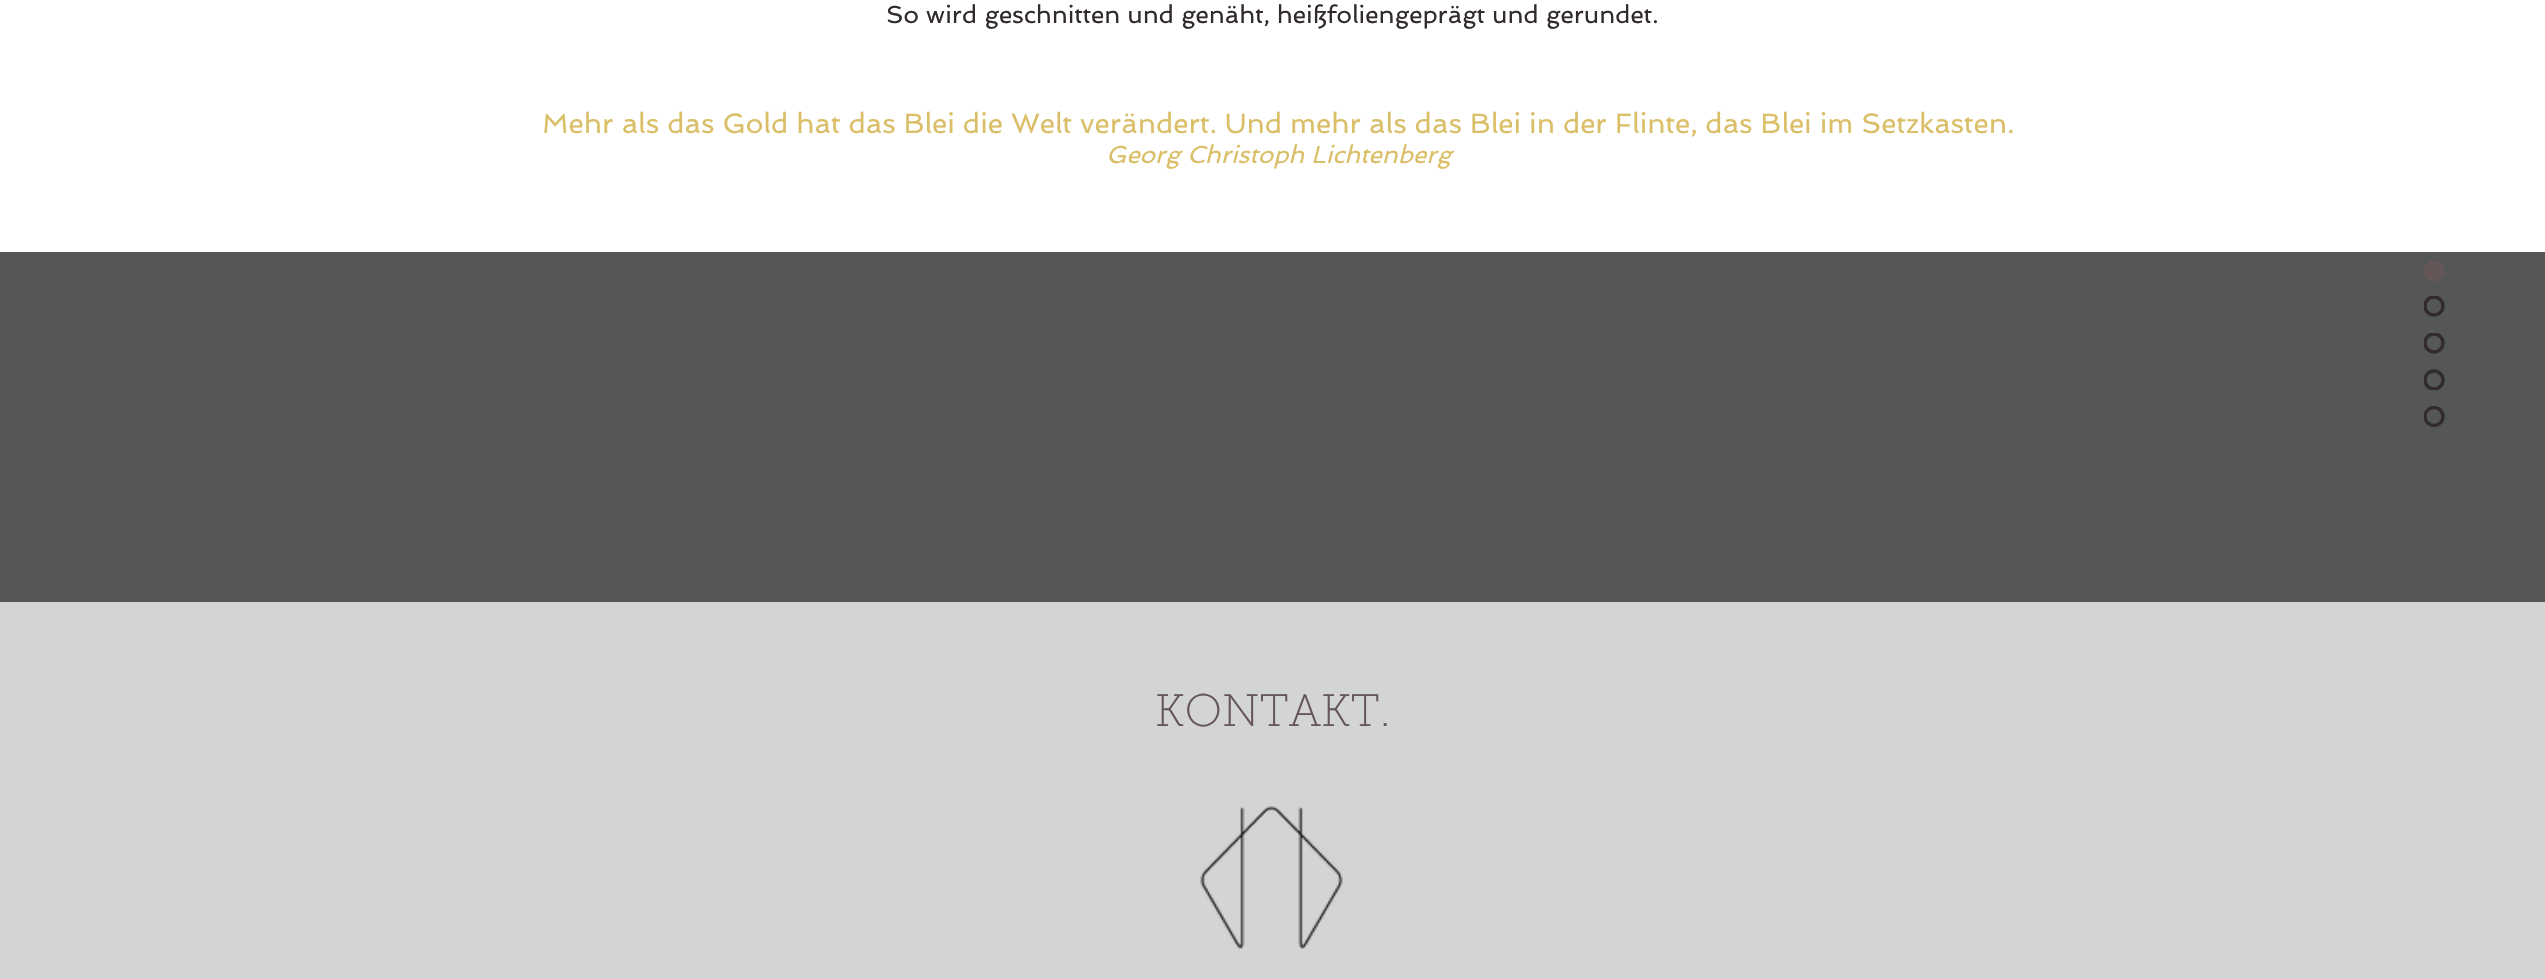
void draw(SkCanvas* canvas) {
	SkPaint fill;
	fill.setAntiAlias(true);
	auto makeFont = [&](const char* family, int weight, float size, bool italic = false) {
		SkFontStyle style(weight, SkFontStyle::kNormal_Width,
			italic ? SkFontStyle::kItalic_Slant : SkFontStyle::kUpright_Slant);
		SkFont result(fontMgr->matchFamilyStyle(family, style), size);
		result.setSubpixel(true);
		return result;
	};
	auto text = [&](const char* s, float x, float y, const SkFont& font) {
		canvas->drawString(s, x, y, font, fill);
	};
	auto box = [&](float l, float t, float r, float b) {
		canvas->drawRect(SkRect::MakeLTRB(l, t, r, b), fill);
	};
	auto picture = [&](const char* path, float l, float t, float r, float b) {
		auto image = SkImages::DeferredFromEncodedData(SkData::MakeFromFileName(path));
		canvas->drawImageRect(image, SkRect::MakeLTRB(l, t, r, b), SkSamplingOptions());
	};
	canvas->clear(0xFFFFFFFF);
	fill.setColor(0xFFD3D5D4);
	box(0, 602, 2545, 979);
	fill.setColor(0xFF545755);
	box(0, 252, 2545, 602);
	picture("image0.png", 1200, 806, 1343, 949);
	fill.setColor(0xFF655657);
	canvas->drawCircle(2434, 271, 9, fill);
	canvas->save();
	canvas->clipRect(SkRect::MakeLTRB(2424, 261, 2445, 282));
	fill.setStyle(SkPaint::kStroke_Style);
	fill.setStrokeWidth(3.5f);
	canvas->drawCircle(2434, 271, 9, fill);
	canvas->restore();
	canvas->save();
	canvas->clipRect(SkRect::MakeLTRB(2424, 296, 2445, 317));
	fill.setColor(0xFF322B2C);
	canvas->drawCircle(2434, 306, 9, fill);
	canvas->restore();
	canvas->save();
	canvas->clipRect(SkRect::MakeLTRB(2424, 333, 2445, 354));
	canvas->drawCircle(2434, 343, 9, fill);
	canvas->restore();
	canvas->save();
	canvas->clipRect(SkRect::MakeLTRB(2424, 369, 2445, 390));
	canvas->drawCircle(2434, 380, 9, fill);
	canvas->restore();
	canvas->save();
	canvas->clipRect(SkRect::MakeLTRB(2424, 406, 2445, 427));
	canvas->drawCircle(2434, 416.5f, 9, fill);
	canvas->restore();
	auto font1 = makeFont("Spinnaker", 400, 24.5f);
	fill.setStyle(SkPaint::kFill_Style);
	text("So wird geschnitten und genäht, heißfoliengeprägt und gerundet.", 886, 23, font1);
	auto font2 = makeFont("Spinnaker", 400, 28);
	fill.setColor(0xFFDABF68);
	text("Mehr als das Gold hat das Blei die Welt verändert. Und mehr als das Blei in der Flinte, das Blei im Setzkasten.", 542, 133, font2);
	auto font3 = makeFont("Spinnaker", 400, 24.5f, true);
	text("Georg Christoph Lichtenberg", 1106, 163, font3);
	auto font4 = makeFont("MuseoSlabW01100", 100, 45.5f);
	fill.setColor(0xFF655657);
	text("KONTAKT.", 1155, 726, font4);
}
